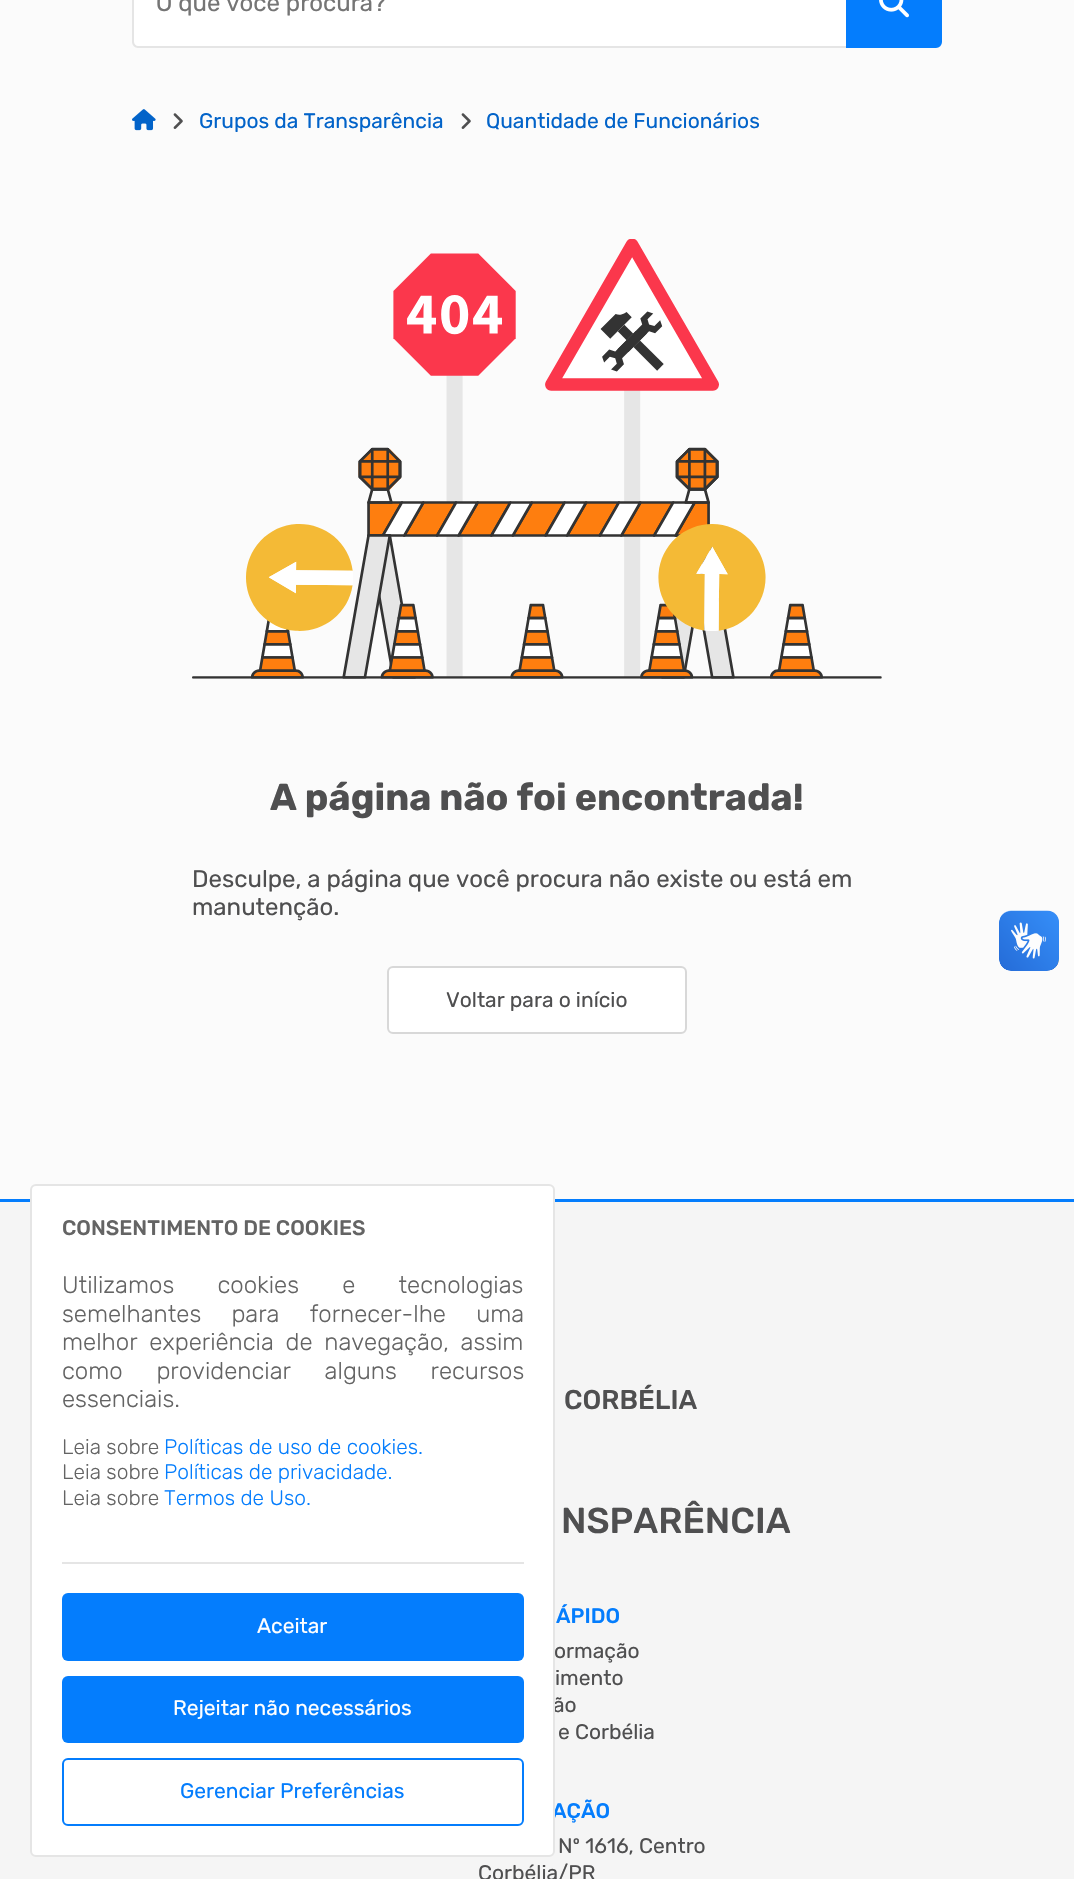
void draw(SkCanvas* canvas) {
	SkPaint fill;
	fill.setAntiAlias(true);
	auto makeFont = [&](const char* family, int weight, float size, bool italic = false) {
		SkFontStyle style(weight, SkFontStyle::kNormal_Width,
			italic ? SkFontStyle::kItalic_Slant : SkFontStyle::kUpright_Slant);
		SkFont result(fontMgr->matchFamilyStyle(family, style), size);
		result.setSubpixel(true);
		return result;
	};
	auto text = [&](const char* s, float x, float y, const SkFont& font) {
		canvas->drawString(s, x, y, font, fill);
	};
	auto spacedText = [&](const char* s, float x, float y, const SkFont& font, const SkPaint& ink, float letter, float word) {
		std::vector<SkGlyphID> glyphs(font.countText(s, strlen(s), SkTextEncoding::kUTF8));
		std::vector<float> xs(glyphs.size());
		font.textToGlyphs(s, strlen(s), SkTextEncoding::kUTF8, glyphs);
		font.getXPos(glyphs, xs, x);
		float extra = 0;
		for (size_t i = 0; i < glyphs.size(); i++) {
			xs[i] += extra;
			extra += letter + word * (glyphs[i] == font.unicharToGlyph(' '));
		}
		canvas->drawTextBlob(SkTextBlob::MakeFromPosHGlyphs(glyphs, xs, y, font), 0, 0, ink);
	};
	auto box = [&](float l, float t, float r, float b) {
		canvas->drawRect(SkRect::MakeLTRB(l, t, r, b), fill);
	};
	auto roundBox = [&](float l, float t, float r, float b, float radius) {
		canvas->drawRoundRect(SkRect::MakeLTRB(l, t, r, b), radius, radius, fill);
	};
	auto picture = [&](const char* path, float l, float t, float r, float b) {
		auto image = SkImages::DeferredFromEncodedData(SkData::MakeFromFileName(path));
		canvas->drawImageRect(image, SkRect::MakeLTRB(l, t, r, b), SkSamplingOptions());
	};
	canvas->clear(0xFFFBFBFB);
	fill.setColor(0xFFFFFFFF);
	canvas->drawPath(SkPathBuilder().moveTo(139, -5).lineTo(846, -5).lineTo(846, 47).lineTo(139, 47).cubicTo(136, 47, 134, 45, 134, 42).lineTo(134, 0).cubicTo(134, -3, 136, -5, 139, -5).close().detach(), fill);
	fill.setColor(0xFFE5E5E5);
	canvas->drawPath(SkPathBuilder(SkPathFillType::kEvenOdd).moveTo(138, -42).lineTo(846, -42).lineTo(846, 48).lineTo(138, 48).cubicTo(135, 48, 132, 45, 132, 42).lineTo(132, -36).cubicTo(132, -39, 135, -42, 138, -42).close().moveTo(138, -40).lineTo(846, -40).lineTo(846, 46).lineTo(138, 46).cubicTo(136, 46, 134, 44, 134, 42).lineTo(134, -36).cubicTo(134, -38, 136, -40, 138, -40).close().detach(), fill);
	fill.setColor(0xFF047DFD);
	canvas->drawPath(SkPathBuilder().moveTo(847.5f, -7.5f).lineTo(936, -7.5f).cubicTo(938.5f, -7.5f, 940.5f, -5.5f, 940.5f, -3).lineTo(940.5f, 42).cubicTo(940.5f, 44.5f, 938.5f, 46.5f, 936, 46.5f).lineTo(847.5f, 46.5f).close().detach(), fill);
	fill.setStyle(SkPaint::kStroke_Style);
	fill.setStrokeWidth(3);
	canvas->drawPath(SkPathBuilder().moveTo(847.5f, -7.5f).lineTo(936, -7.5f).cubicTo(938.5f, -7.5f, 940.5f, -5.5f, 940.5f, -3).lineTo(940.5f, 42).cubicTo(940.5f, 44.5f, 938.5f, 46.5f, 936, 46.5f).lineTo(847.5f, 46.5f).close().detach(), fill);
	picture("image0.png", 879, 0, 909, 18);
	picture("image1.png", 132, 109, 156, 131);
	picture("image2.png", 173, 113, 183, 129);
	picture("image2.png", 461, 113, 471, 129);
	picture("image3.png", 192, 239, 882, 679);
	fill.setStyle(SkPaint::kFill_Style);
	fill.setColor(0xFFFFFFFF);
	canvas->drawRoundRect(SkRect::MakeLTRB(388, 967, 686, 1033), 5, 5, fill);
	fill.setStyle(SkPaint::kStroke_Style);
	fill.setStrokeWidth(2);
	fill.setColor(0xFFD8D8D8);
	canvas->drawRoundRect(SkRect::MakeLTRB(388, 967, 686, 1033), 5, 5, fill);
	picture("image4.png", 999, 910, 1059, 971);
	picture("image5.png", 999, 911, 1059, 971);
	fill.setStyle(SkPaint::kFill_Style);
	fill.setColor(0xFF047DFD);
	box(0, 1199, 1074, 1202);
	fill.setColor(0xFFF5F5F5);
	box(0, 1202, 1074, 1879);
	auto font1 = makeFont("Rubik", 400, 24);
	fill.setColor(0xFF757575);
	text("O que você procura?", 156, 11, font1);
	auto font2 = makeFont("Rubik", 400, 21);
	fill.setColor(0xFF0263C9);
	text("Grupos da Transparência", 199, 128, font2);
	text("Quantidade de Funcionários", 486, 128, font2);
	auto font3 = makeFont("Rubik", 700, 37.5f);
	fill.setColor(0xFF4F4F50);
	text("A página não foi encontrada!", 270, 810, font3);
	text("Desculpe, a página que você procura não existe ou está em", 192, 887, font1);
	text("manutenção.", 192, 915, font1);
	text("Voltar para o início", 446, 1007, font2);
	auto font4 = makeFont("Rubik", 500, 27);
	text("CORBÉLIA", 564, 1409, font4);
	auto font5 = makeFont("Rubik", 500, 36);
	text("NSPARÊNCIA", 561, 1533, font5);
	auto font6 = makeFont("Rubik", 500, 21);
	fill.setColor(0xFF047DFD);
	text("ÁPIDO", 556, 1623, font6);
	fill.setColor(0xFF4F4F50);
	text("ormação", 554, 1658, font2);
	text("imento", 555, 1685, font2);
	text("ão", 553, 1712, font2);
	text("e Corbélia", 558, 1739, font2);
	fill.setColor(0xFF047DFD);
	text("AÇÃO", 552, 1818, font6);
	fill.setColor(0xFFFFFFFF);
	canvas->drawRoundRect(SkRect::MakeLTRB(31, 1185, 554, 1856), 5, 5, fill);
	fill.setStyle(SkPaint::kStroke_Style);
	fill.setColor(0xFFE5E5E5);
	canvas->drawRoundRect(SkRect::MakeLTRB(31, 1185, 554, 1856), 5, 5, fill);
	fill.setColor(0xFF047DFD);
	canvas->drawRoundRect(SkRect::MakeLTRB(63, 1759, 523, 1825), 5, 5, fill);
	fill.setStyle(SkPaint::kFill_Style);
	text("Gerenciar Preferências", 180, 1798, font2);
	roundBox(62, 1676, 524, 1743, 6);
	fill.setColor(0xFFFFFFFF);
	text("Rejeitar não necessários", 173, 1715, font2);
	fill.setColor(0xFF047DFD);
	roundBox(62, 1593, 524, 1661, 6);
	fill.setColor(0xFFFFFFFF);
	text("Aceitar", 257, 1633, font2);
	fill.setColor(0xFFE5E5E5);
	box(62, 1562, 524, 1564);
	auto font7 = makeFont("Rubik", 300, 21);
	fill.setColor(0xFF047DFD);
	text("Termos de Uso.", 164, 1505, font7);
	fill.setColor(0xFF646464);
	text("Leia sobre", 62, 1505, font7);
	fill.setColor(0xFF047DFD);
	text("Políticas de privacidade.", 164, 1479, font7);
	fill.setColor(0xFF646464);
	text("Leia sobre", 62, 1479, font7);
	fill.setColor(0xFF047DFD);
	text("Políticas de uso de cookies.", 164, 1454, font7);
	fill.setColor(0xFF646464);
	text("Leia sobre", 62, 1454, font7);
	auto font8 = makeFont("Rubik", 300, 24);
	text("essenciais.", 62, 1407, font8);
	spacedText("como providenciar alguns recursos", 62, 1379, font8, fill, 0, 27.5f);
	spacedText("melhor experiência de navegação, assim", 62, 1350, font8, fill, 0, 5.5f);
	spacedText("semelhantes para fornecer-lhe uma", 62, 1322, font8, fill, 0, 24);
	spacedText("Utilizamos cookies e tecnologias", 62, 1293, font8, fill, 0, 37);
	text("CONSENTIMENTO DE COOKIES", 62, 1235, font6);
	fill.setColor(0xFF4F4F50);
	text("Nº 1616, Centro", 558, 1853, font2);
	text("Corbélia/PR", 478, 1880, font2);
}
